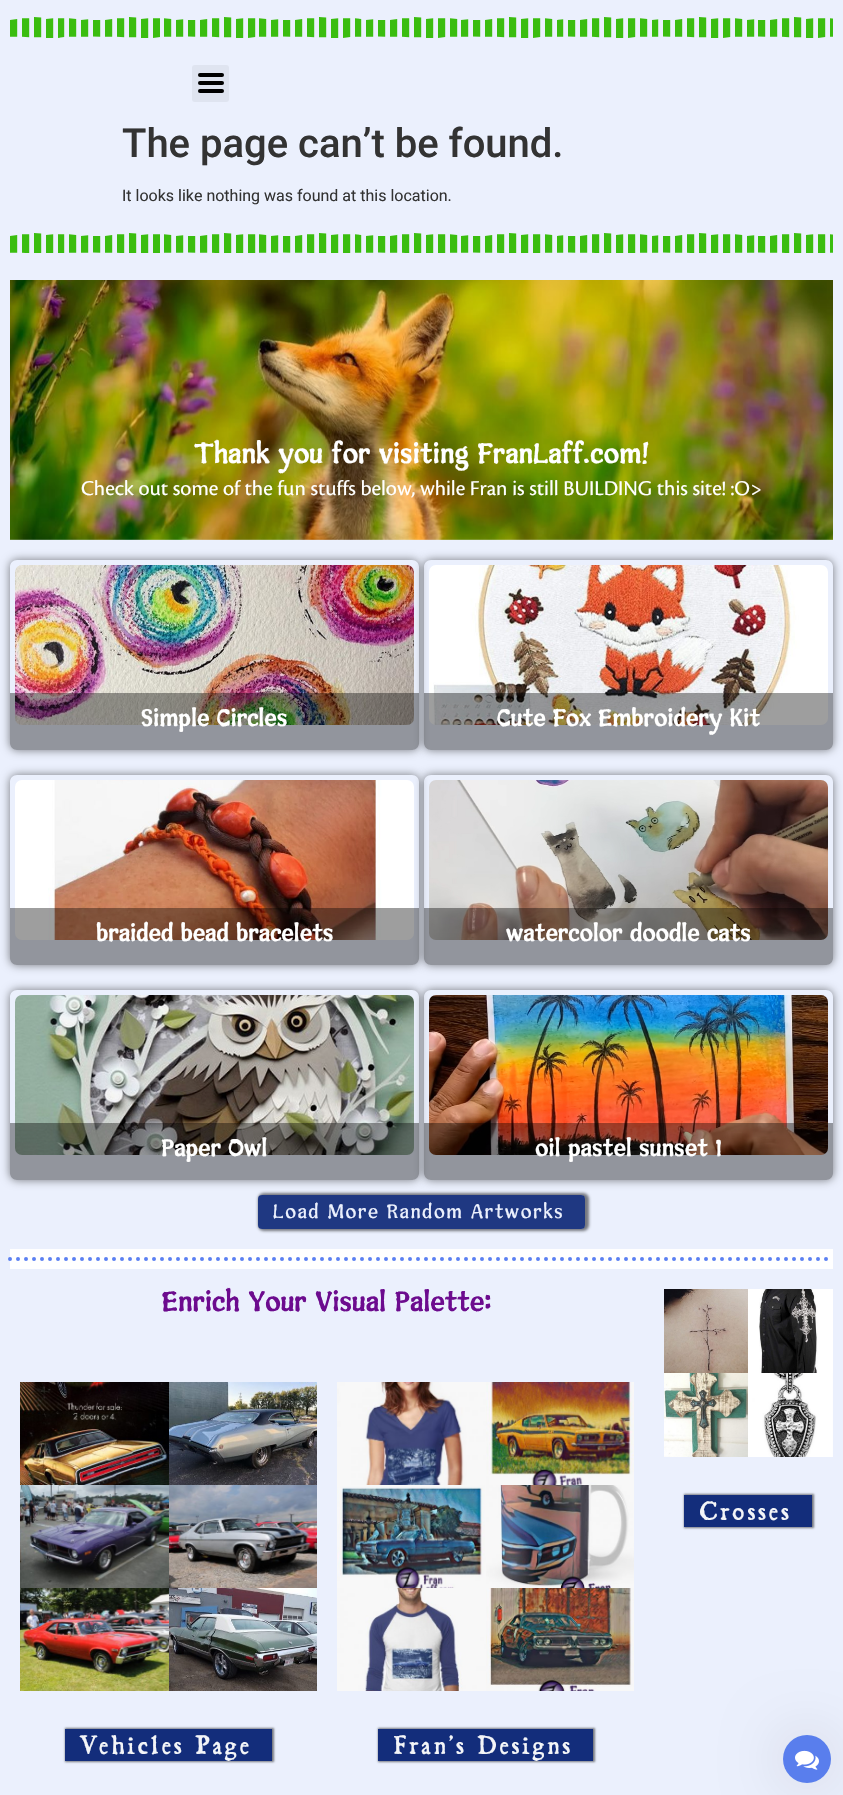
void draw(SkCanvas* canvas) {
	SkPaint fill;
	fill.setAntiAlias(true);
	auto makeFont = [&](const char* family, int weight, float size, bool italic = false) {
		SkFontStyle style(weight, SkFontStyle::kNormal_Width,
			italic ? SkFontStyle::kItalic_Slant : SkFontStyle::kUpright_Slant);
		SkFont result(fontMgr->matchFamilyStyle(family, style), size);
		result.setSubpixel(true);
		return result;
	};
	auto text = [&](const char* s, float x, float y, const SkFont& font) {
		canvas->drawString(s, x, y, font, fill);
	};
	auto spacedText = [&](const char* s, float x, float y, const SkFont& font, const SkPaint& ink, float letter, float word) {
		std::vector<SkGlyphID> glyphs(font.countText(s, strlen(s), SkTextEncoding::kUTF8));
		std::vector<float> xs(glyphs.size());
		font.textToGlyphs(s, strlen(s), SkTextEncoding::kUTF8, glyphs);
		font.getXPos(glyphs, xs, x);
		float extra = 0;
		for (size_t i = 0; i < glyphs.size(); i++) {
			xs[i] += extra;
			extra += letter + word * (glyphs[i] == font.unicharToGlyph(' '));
		}
		canvas->drawTextBlob(SkTextBlob::MakeFromPosHGlyphs(glyphs, xs, y, font), 0, 0, ink);
	};
	auto box = [&](float l, float t, float r, float b) {
		canvas->drawRect(SkRect::MakeLTRB(l, t, r, b), fill);
	};
	auto roundBox = [&](float l, float t, float r, float b, float radius) {
		canvas->drawRoundRect(SkRect::MakeLTRB(l, t, r, b), radius, radius, fill);
	};
	auto picture = [&](const char* path, float l, float t, float r, float b) {
		auto image = SkImages::DeferredFromEncodedData(SkData::MakeFromFileName(path));
		canvas->drawImageRect(image, SkRect::MakeLTRB(l, t, r, b), SkSamplingOptions());
	};
	canvas->clear(0xFFEBF0FD);
	picture("image0.png", 10, 17, 833, 38);
	fill.setColor(0xFFDFE4F0);
	roundBox(192, 65, 229, 102, 3);
	fill.setColor(0xFF000000);
	roundBox(198, 81, 224, 85, 2);
	roundBox(198, 73, 224, 77, 2);
	roundBox(198, 89, 224, 93, 2);
	picture("image1.png", 10, 233, 833, 253);
	picture("image2.png", 10, 280, 833, 540);
	canvas->save();
	canvas->clipPath(SkPathBuilder(SkPathFillType::kEvenOdd).moveTo(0, 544).lineTo(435, 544).lineTo(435, 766).lineTo(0, 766).close().moveTo(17, 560).lineTo(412, 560).cubicTo(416, 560, 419, 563, 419, 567).lineTo(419, 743).cubicTo(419, 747, 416, 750, 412, 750).lineTo(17, 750).cubicTo(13, 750, 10, 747, 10, 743).lineTo(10, 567).cubicTo(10, 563, 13, 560, 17, 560).close().detach(), true);
	fill.setColor(0x80000000);
	fill.setMaskFilter(SkMaskFilter::MakeBlur(kNormal_SkBlurStyle, 5));
	canvas->drawRoundRect(SkRect::MakeLTRB(10, 560, 419, 750), 7, 7, fill);
	fill.setMaskFilter(nullptr);
	canvas->restore();
	canvas->save();
	canvas->clipPath(SkPathBuilder(SkPathFillType::kEvenOdd).moveTo(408, 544).lineTo(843, 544).lineTo(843, 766).lineTo(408, 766).close().moveTo(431, 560).lineTo(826, 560).cubicTo(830, 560, 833, 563, 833, 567).lineTo(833, 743).cubicTo(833, 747, 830, 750, 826, 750).lineTo(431, 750).cubicTo(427, 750, 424, 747, 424, 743).lineTo(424, 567).cubicTo(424, 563, 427, 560, 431, 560).close().detach(), true);
	fill.setMaskFilter(SkMaskFilter::MakeBlur(kNormal_SkBlurStyle, 5));
	canvas->drawRoundRect(SkRect::MakeLTRB(424, 560, 833, 750), 7, 7, fill);
	fill.setMaskFilter(nullptr);
	canvas->restore();
	picture("image3.png", 15, 565, 414, 725);
	fill.setColor(0x61000000);
	canvas->drawPath(SkPathBuilder().moveTo(10, 693).lineTo(419, 693).lineTo(419, 743).cubicTo(419, 747, 416, 750, 412, 750).lineTo(17, 750).cubicTo(13, 750, 10, 747, 10, 743).close().detach(), fill);
	picture("image4.png", 429, 565, 828, 725);
	canvas->drawPath(SkPathBuilder().moveTo(424, 693).lineTo(833, 693).lineTo(833, 743).cubicTo(833, 747, 830, 750, 826, 750).lineTo(431, 750).cubicTo(427, 750, 424, 747, 424, 743).close().detach(), fill);
	canvas->save();
	canvas->clipPath(SkPathBuilder(SkPathFillType::kEvenOdd).moveTo(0, 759).lineTo(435, 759).lineTo(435, 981).lineTo(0, 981).close().moveTo(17, 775).lineTo(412, 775).cubicTo(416, 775, 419, 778, 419, 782).lineTo(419, 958).cubicTo(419, 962, 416, 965, 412, 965).lineTo(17, 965).cubicTo(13, 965, 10, 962, 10, 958).lineTo(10, 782).cubicTo(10, 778, 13, 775, 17, 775).close().detach(), true);
	fill.setColor(0x80000000);
	fill.setMaskFilter(SkMaskFilter::MakeBlur(kNormal_SkBlurStyle, 5));
	canvas->drawRoundRect(SkRect::MakeLTRB(10, 775, 419, 965), 7, 7, fill);
	fill.setMaskFilter(nullptr);
	canvas->restore();
	canvas->save();
	canvas->clipPath(SkPathBuilder(SkPathFillType::kEvenOdd).moveTo(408, 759).lineTo(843, 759).lineTo(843, 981).lineTo(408, 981).close().moveTo(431, 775).lineTo(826, 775).cubicTo(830, 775, 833, 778, 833, 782).lineTo(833, 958).cubicTo(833, 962, 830, 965, 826, 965).lineTo(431, 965).cubicTo(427, 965, 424, 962, 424, 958).lineTo(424, 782).cubicTo(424, 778, 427, 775, 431, 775).close().detach(), true);
	fill.setMaskFilter(SkMaskFilter::MakeBlur(kNormal_SkBlurStyle, 5));
	canvas->drawRoundRect(SkRect::MakeLTRB(424, 775, 833, 965), 7, 7, fill);
	fill.setMaskFilter(nullptr);
	canvas->restore();
	picture("image5.png", 15, 780, 414, 940);
	fill.setColor(0x61000000);
	canvas->drawPath(SkPathBuilder().moveTo(10, 908).lineTo(419, 908).lineTo(419, 958).cubicTo(419, 962, 416, 965, 412, 965).lineTo(17, 965).cubicTo(13, 965, 10, 962, 10, 958).close().detach(), fill);
	picture("image6.png", 429, 780, 828, 940);
	canvas->drawPath(SkPathBuilder().moveTo(424, 908).lineTo(833, 908).lineTo(833, 958).cubicTo(833, 962, 830, 965, 826, 965).lineTo(431, 965).cubicTo(427, 965, 424, 962, 424, 958).close().detach(), fill);
	canvas->save();
	canvas->clipPath(SkPathBuilder(SkPathFillType::kEvenOdd).moveTo(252, 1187).lineTo(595, 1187).lineTo(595, 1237).lineTo(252, 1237).close().moveTo(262, 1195).lineTo(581, 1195).cubicTo(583, 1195, 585, 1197, 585, 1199).lineTo(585, 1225).cubicTo(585, 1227, 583, 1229, 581, 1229).lineTo(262, 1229).cubicTo(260, 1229, 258, 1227, 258, 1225).lineTo(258, 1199).cubicTo(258, 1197, 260, 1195, 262, 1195).close().detach(), true);
	fill.setColor(0x80000000);
	fill.setMaskFilter(SkMaskFilter::MakeBlur(kNormal_SkBlurStyle, 1.5f));
	canvas->drawRoundRect(SkRect::MakeLTRB(258, 1193, 589, 1231), 6, 6, fill);
	fill.setMaskFilter(nullptr);
	canvas->restore();
	fill.setColor(0xE80A2576);
	roundBox(258, 1195, 585, 1229, 4);
	canvas->save();
	canvas->clipPath(SkPathBuilder(SkPathFillType::kEvenOdd).moveTo(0, 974).lineTo(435, 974).lineTo(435, 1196).lineTo(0, 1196).close().moveTo(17, 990).lineTo(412, 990).cubicTo(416, 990, 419, 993, 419, 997).lineTo(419, 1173).cubicTo(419, 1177, 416, 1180, 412, 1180).lineTo(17, 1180).cubicTo(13, 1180, 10, 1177, 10, 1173).lineTo(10, 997).cubicTo(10, 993, 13, 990, 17, 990).close().detach(), true);
	fill.setColor(0x80000000);
	fill.setMaskFilter(SkMaskFilter::MakeBlur(kNormal_SkBlurStyle, 5));
	canvas->drawRoundRect(SkRect::MakeLTRB(10, 990, 419, 1180), 7, 7, fill);
	fill.setMaskFilter(nullptr);
	canvas->restore();
	canvas->save();
	canvas->clipPath(SkPathBuilder(SkPathFillType::kEvenOdd).moveTo(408, 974).lineTo(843, 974).lineTo(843, 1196).lineTo(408, 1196).close().moveTo(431, 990).lineTo(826, 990).cubicTo(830, 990, 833, 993, 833, 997).lineTo(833, 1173).cubicTo(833, 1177, 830, 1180, 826, 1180).lineTo(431, 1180).cubicTo(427, 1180, 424, 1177, 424, 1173).lineTo(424, 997).cubicTo(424, 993, 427, 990, 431, 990).close().detach(), true);
	fill.setMaskFilter(SkMaskFilter::MakeBlur(kNormal_SkBlurStyle, 5));
	canvas->drawRoundRect(SkRect::MakeLTRB(424, 990, 833, 1180), 7, 7, fill);
	fill.setMaskFilter(nullptr);
	canvas->restore();
	picture("image7.png", 15, 995, 414, 1155);
	fill.setColor(0x61000000);
	canvas->drawPath(SkPathBuilder().moveTo(10, 1123).lineTo(419, 1123).lineTo(419, 1173).cubicTo(419, 1177, 416, 1180, 412, 1180).lineTo(17, 1180).cubicTo(13, 1180, 10, 1177, 10, 1173).close().detach(), fill);
	picture("image8.png", 429, 995, 828, 1155);
	canvas->drawPath(SkPathBuilder().moveTo(424, 1123).lineTo(833, 1123).lineTo(833, 1173).cubicTo(833, 1177, 830, 1180, 826, 1180).lineTo(431, 1180).cubicTo(427, 1180, 424, 1177, 424, 1173).close().detach(), fill);
	fill.setColor(0xFFFFFFFF);
	box(10, 1249, 833, 1269);
	fill.setStyle(SkPaint::kStroke_Style);
	fill.setStrokeWidth(4);
	fill.setStrokeCap(SkPaint::kRound_Cap);
	fill.setColor(0xFF5B80F2);
	fill.setPathEffect(SkDashPathEffect::Make({{0, 8}}, 0));
	canvas->drawPath(SkPathBuilder().moveTo(10, 1259).lineTo(833, 1259).detach(), fill);
	fill.setPathEffect(nullptr);
	picture("image9.png", 20, 1382, 169, 1485);
	picture("image10.png", 169, 1382, 317, 1485);
	picture("image11.png", 20, 1485, 169, 1588);
	picture("image12.png", 169, 1485, 317, 1588);
	picture("image13.png", 20, 1588, 169, 1691);
	picture("image14.png", 169, 1588, 317, 1691);
	fill.setStyle(SkPaint::kFill_Style);
	fill.setColor(0x80000000);
	fill.setMaskFilter(SkMaskFilter::MakeBlur(kNormal_SkBlurStyle, 1));
	canvas->drawRect(SkRect::MakeLTRB(65, 1728, 274, 1762), fill);
	fill.setMaskFilter(nullptr);
	fill.setColor(0xFF132D7B);
	box(65, 1729, 272, 1761);
	picture("image15.png", 337, 1382, 486, 1485);
	picture("image16.png", 486, 1382, 634, 1485);
	picture("image17.png", 337, 1485, 486, 1588);
	picture("image18.png", 486, 1485, 634, 1588);
	picture("image19.png", 337, 1588, 486, 1691);
	picture("image20.png", 486, 1588, 634, 1691);
	fill.setColor(0x80000000);
	fill.setMaskFilter(SkMaskFilter::MakeBlur(kNormal_SkBlurStyle, 1));
	canvas->drawRect(SkRect::MakeLTRB(378, 1728, 595, 1762), fill);
	fill.setMaskFilter(nullptr);
	fill.setColor(0xFF132D7B);
	box(378, 1729, 593, 1761);
	picture("image21.png", 664, 1289, 748, 1373);
	picture("image22.png", 748, 1289, 833, 1373);
	picture("image23.png", 664, 1373, 748, 1457);
	picture("image24.png", 748, 1373, 833, 1457);
	fill.setColor(0x80000000);
	fill.setMaskFilter(SkMaskFilter::MakeBlur(kNormal_SkBlurStyle, 1));
	canvas->drawRect(SkRect::MakeLTRB(684, 1494, 814, 1528), fill);
	fill.setMaskFilter(nullptr);
	fill.setColor(0xFF132D7B);
	box(684, 1495, 812, 1527);
	fill.setColor(0x26000000);
	fill.setMaskFilter(SkMaskFilter::MakeBlur(kNormal_SkBlurStyle, 30));
	canvas->drawRoundRect(SkRect::MakeLTRB(783, 1735, 831, 1783), 24, 24, fill);
	fill.setMaskFilter(nullptr);
	fill.setColor(0xFF597EED);
	canvas->drawCircle(807, 1759, 24, fill);
	picture("image25.png", 795, 1750, 819, 1770);
	auto font1 = makeFont("Roboto", 500, 40);
	fill.setColor(0xFF333333);
	text("The page can’t be found.", 122, 157, font1);
	auto font2 = makeFont("Roboto", 400, 16);
	text("It looks like nothing was found at this location.", 122, 201, font2);
	auto font3 = makeFont("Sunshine", 700, 28);
	fill.setColor(0xFFFFFFFF);
	text("Thank you for visiting FranLaff.com!", 194, 463, font3);
	auto font4 = makeFont("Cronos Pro", 400, 22);
	text("Check out some of the fun stuffs below, while Fran is still BUILDING this site! :O>", 81, 495, font4);
	auto font5 = makeFont("Sunshine", 700, 24);
	text("Simple Circles", 141, 726, font5);
	text("Cute Fox Embroidery Kit", 497, 726, font5);
	text("braided bead bracelets", 96, 941, font5);
	text("watercolor doodle cats", 506, 941, font5);
	text("Paper Owl", 161, 1156, font5);
	text("oil pastel sunset 1", 535, 1156, font5);
	auto font6 = makeFont("Sunshine", 400, 20);
	fill.setColor(0xFFEBF0FD);
	spacedText("Load More Random Artworks", 273, 1218, font6, fill, 1.3f, 0);
	fill.setColor(0xFF6C0B8E);
	text("Enrich Your Visual Palette:", 162, 1311, font3);
	auto font7 = makeFont("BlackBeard", 900, 30);
	fill.setColor(0xFFF3F5F8);
	spacedText("Vehicles Page", 81, 1754, font7, fill, 3.6f, 0);
	spacedText("Fran’s Designs", 394, 1754, font7, fill, 3.6f, 0);
	spacedText("Crosses", 700, 1520, font7, fill, 3.6f, 0);
}
